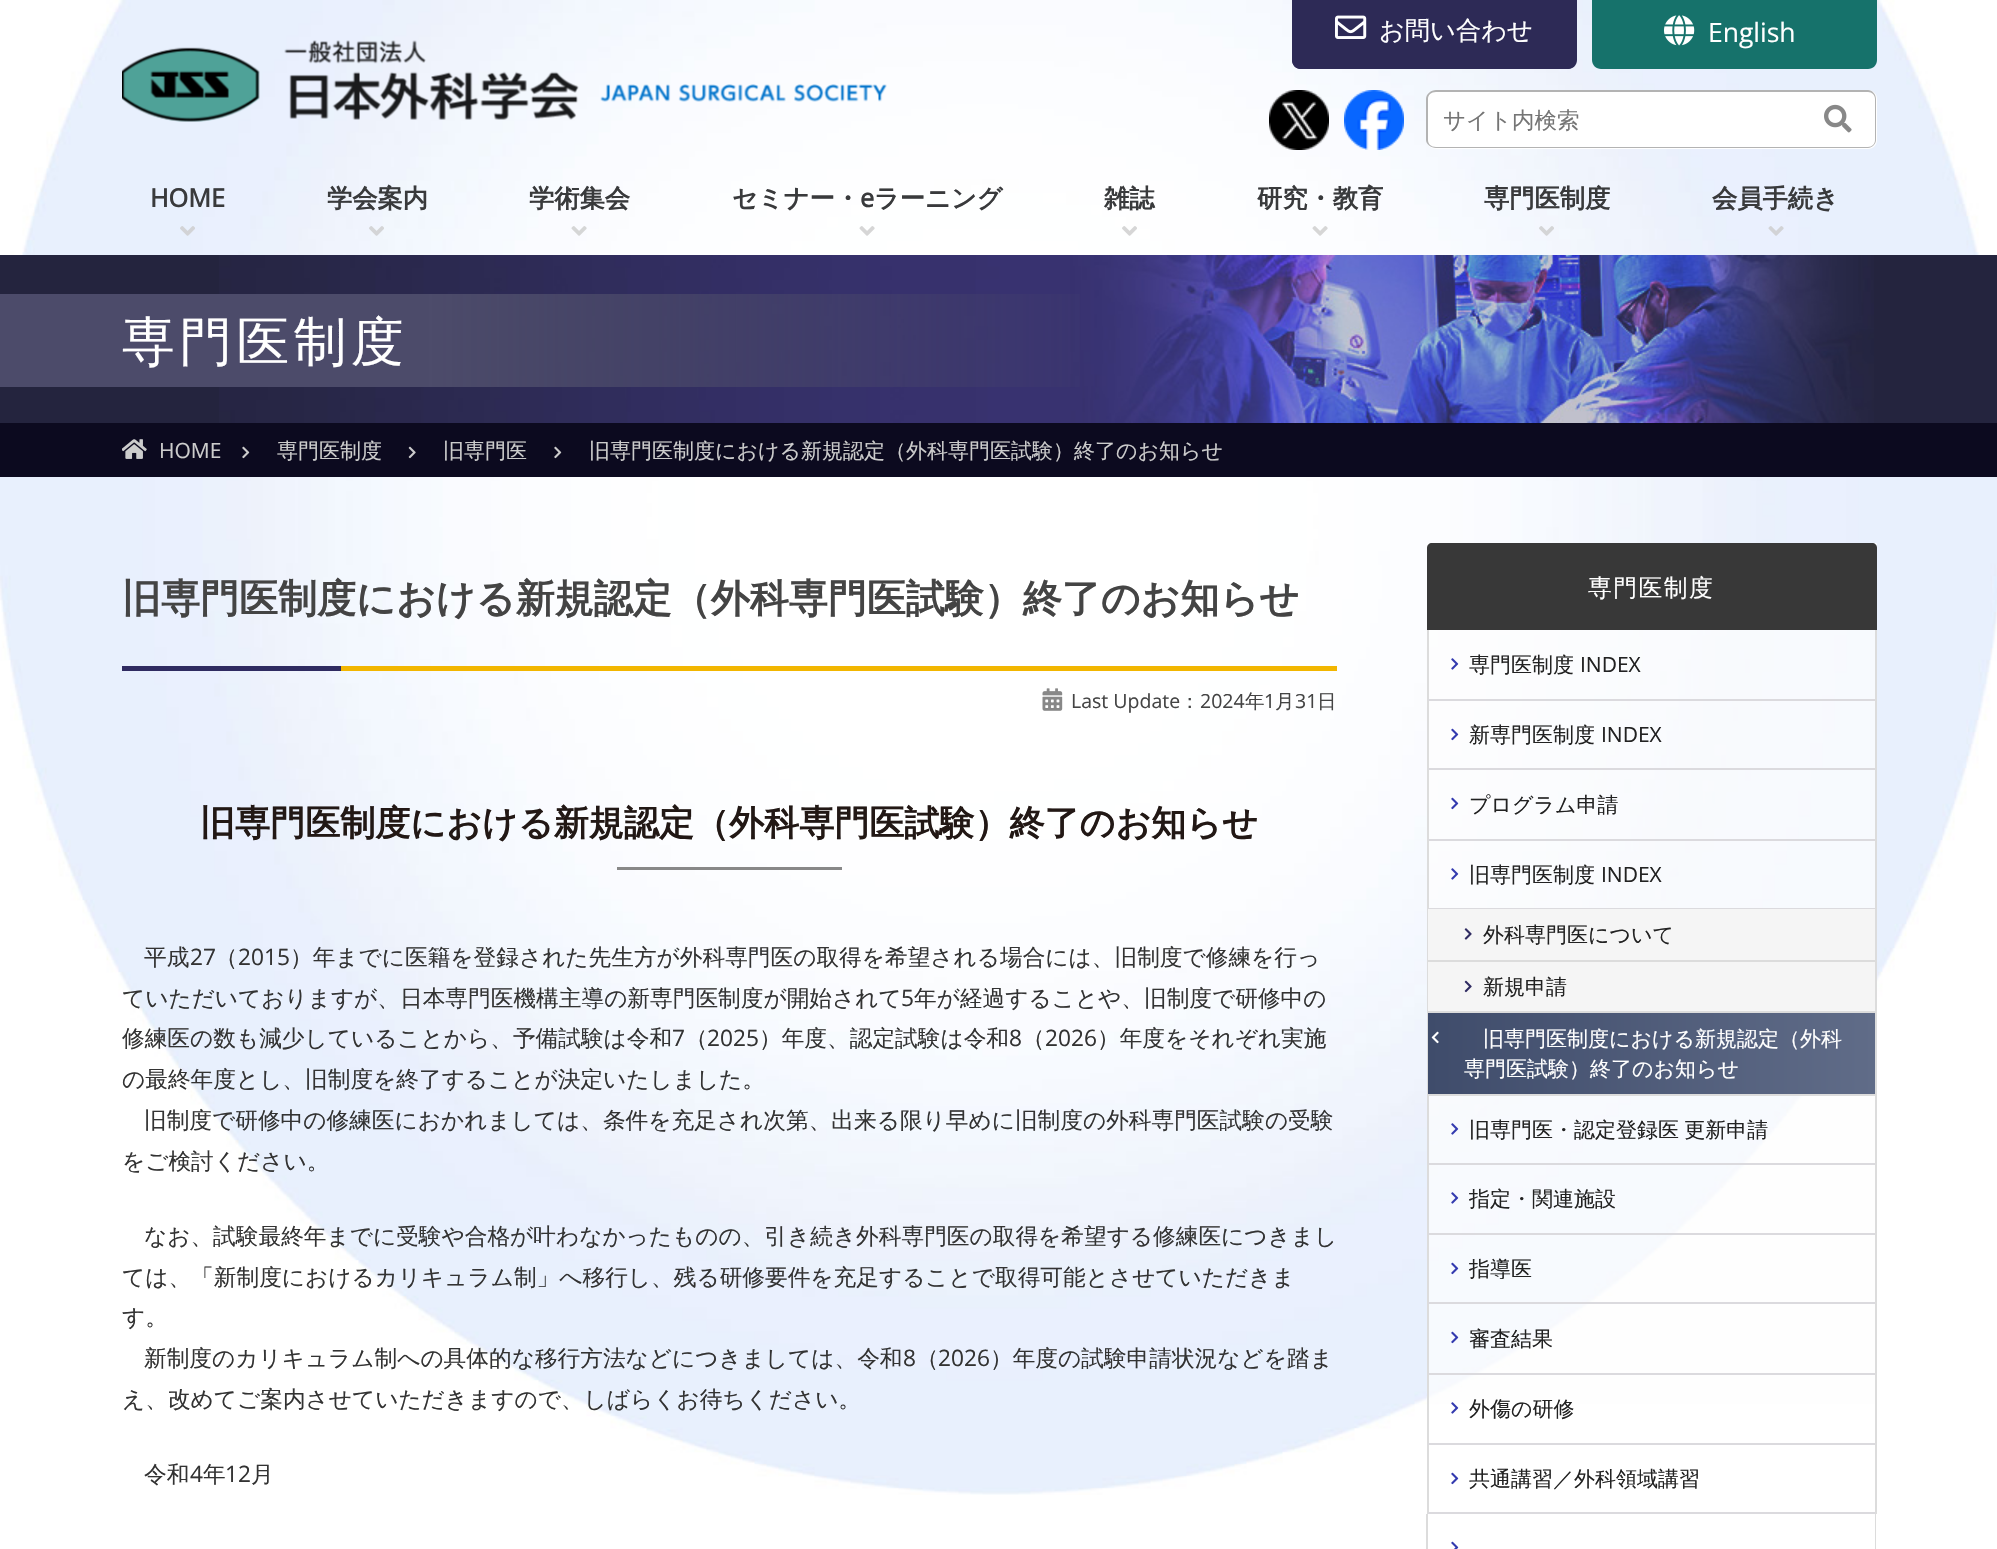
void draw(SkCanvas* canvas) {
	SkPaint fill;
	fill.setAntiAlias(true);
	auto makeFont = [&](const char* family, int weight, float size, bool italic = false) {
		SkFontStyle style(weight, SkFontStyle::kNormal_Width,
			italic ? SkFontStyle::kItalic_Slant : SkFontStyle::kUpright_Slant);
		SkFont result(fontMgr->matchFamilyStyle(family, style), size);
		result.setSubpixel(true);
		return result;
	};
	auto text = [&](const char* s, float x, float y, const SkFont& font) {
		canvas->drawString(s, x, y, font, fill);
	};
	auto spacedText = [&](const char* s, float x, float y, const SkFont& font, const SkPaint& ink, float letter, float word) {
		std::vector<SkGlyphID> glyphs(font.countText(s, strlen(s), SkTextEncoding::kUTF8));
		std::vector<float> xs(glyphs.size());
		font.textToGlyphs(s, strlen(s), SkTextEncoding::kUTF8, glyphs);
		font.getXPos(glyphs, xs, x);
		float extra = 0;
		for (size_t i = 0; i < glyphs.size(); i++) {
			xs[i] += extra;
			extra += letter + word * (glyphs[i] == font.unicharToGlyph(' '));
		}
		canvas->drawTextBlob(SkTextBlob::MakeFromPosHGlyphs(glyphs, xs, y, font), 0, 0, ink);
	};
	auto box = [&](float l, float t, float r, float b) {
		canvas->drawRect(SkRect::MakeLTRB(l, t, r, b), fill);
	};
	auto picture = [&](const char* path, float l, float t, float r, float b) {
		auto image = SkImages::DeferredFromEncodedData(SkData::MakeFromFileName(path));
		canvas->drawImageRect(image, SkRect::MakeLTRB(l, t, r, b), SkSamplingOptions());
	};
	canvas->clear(0xFFFFFFFF);
	picture("image0.png", 0, 0, 1997, 1495);
	fill.setColor(0xFF2D2A56);
	canvas->drawPath(SkPathBuilder().moveTo(1292, 0).lineTo(1577, 0).lineTo(1577, 60).cubicTo(1577, 65, 1573, 69, 1568, 69).lineTo(1301, 69).cubicTo(1296, 69, 1292, 65, 1292, 60).close().detach(), fill);
	canvas->drawPath(SkPathBuilder(SkPathFillType::kEvenOdd).moveTo(1292, 0).lineTo(1576, 0).lineTo(1576, 60).cubicTo(1576, 65, 1572, 69, 1568, 69).lineTo(1300, 69).cubicTo(1296, 69, 1292, 65, 1292, 60).close().moveTo(1293, 0).lineTo(1575, 0).lineTo(1575, 60).cubicTo(1575, 64, 1572, 68, 1568, 68).lineTo(1300, 68).cubicTo(1296, 68, 1293, 64, 1293, 60).close().detach(), fill);
	picture("image1.png", 1335, 15, 1367, 39);
	fill.setColor(0xFF16726B);
	canvas->drawPath(SkPathBuilder().moveTo(1592, 0).lineTo(1877, 0).lineTo(1877, 60).cubicTo(1877, 65, 1873, 69, 1868, 69).lineTo(1601, 69).cubicTo(1596, 69, 1592, 65, 1592, 60).close().detach(), fill);
	picture("image2.png", 1664, 15, 1695, 46);
	picture("image3.png", 122, 40, 579, 122);
	picture("image4.png", 600, 84, 887, 102);
	picture("image5.png", 1269, 90, 1329, 150);
	picture("image6.png", 1344, 90, 1404, 150);
	fill.setColor(0xFFFFFFFF);
	canvas->drawPath(SkPathBuilder().moveTo(1436, 90).lineTo(1802, 90).lineTo(1802, 149).lineTo(1436, 149).cubicTo(1431, 149, 1427, 145, 1427, 140).lineTo(1427, 99).cubicTo(1427, 94, 1431, 90, 1436, 90).close().detach(), fill);
	fill.setColor(0xFFB3B3B3);
	canvas->drawPath(SkPathBuilder(SkPathFillType::kEvenOdd).moveTo(1436, 90).lineTo(1802, 90).lineTo(1802, 148).lineTo(1436, 148).cubicTo(1431, 148, 1426, 144, 1426, 140).lineTo(1426, 99).cubicTo(1426, 94, 1431, 90, 1436, 90).close().moveTo(1436, 92).lineTo(1802, 92).lineTo(1802, 147).lineTo(1436, 147).cubicTo(1431, 147, 1428, 144, 1428, 140).lineTo(1428, 99).cubicTo(1428, 95, 1431, 92, 1436, 92).close().detach(), fill);
	fill.setColor(0xFFFFFFFF);
	canvas->drawPath(SkPathBuilder().moveTo(1802, 90).lineTo(1868, 90).cubicTo(1873, 90, 1877, 94, 1877, 99).lineTo(1877, 140).cubicTo(1877, 145, 1873, 149, 1868, 149).lineTo(1802, 149).close().detach(), fill);
	fill.setColor(0xFFB3B3B3);
	canvas->drawPath(SkPathBuilder(SkPathFillType::kEvenOdd).moveTo(1802, 90).lineTo(1868, 90).cubicTo(1872, 90, 1876, 94, 1876, 99).lineTo(1876, 140).cubicTo(1876, 144, 1872, 148, 1868, 148).lineTo(1802, 148).close().moveTo(1802, 92).lineTo(1868, 92).cubicTo(1872, 92, 1875, 95, 1875, 99).lineTo(1875, 140).cubicTo(1875, 144, 1872, 147, 1868, 147).lineTo(1802, 147).close().detach(), fill);
	picture("image7.png", 1824, 104, 1852, 133);
	picture("image8.png", 180, 226, 195, 236);
	picture("image9.png", 369, 226, 384, 236);
	picture("image10.png", 571, 226, 587, 236);
	picture("image11.png", 859, 226, 875, 236);
	picture("image12.png", 1122, 226, 1137, 236);
	picture("image13.png", 1312, 226, 1328, 236);
	picture("image14.png", 1539, 226, 1554, 236);
	picture("image15.png", 1768, 226, 1784, 236);
	fill.setColor(0xFF24243E);
	box(0, 255, 1997, 423);
	picture("image16.png", 219, 255, 1874, 423);
	{
		const SkColor colors[] = {0xFF4C4B6A, 0xFF4C4B6A, 0x004C4B6A};
		const float stops[] = {0, 0.3f, 1};
		const SkPoint ends[] = {{122, 341}, {1142, 340}};
		fill.setShader(SkGradientShader::MakeLinear(ends, colors, stops, 3, SkTileMode::kClamp));
		fill.setAlpha(255);
	}
	box(122, 294, 1080, 387);
	fill.setShader(nullptr);
	fill.setColor(0xFF4C4B6A);
	box(0, 294, 122, 387);
	fill.setColor(0xFF0C0A1F);
	box(0, 423, 1997, 477);
	picture("image17.png", 122, 439, 147, 459);
	picture("image18.png", 242, 446, 250, 459);
	picture("image19.png", 408, 446, 416, 459);
	picture("image18.png", 554, 446, 562, 459);
	fill.setColor(0xFF2F2B61);
	box(122, 666, 341, 671);
	fill.setColor(0xFFF2B600);
	box(341, 666, 1337, 671);
	picture("image20.png", 1042, 688, 1063, 711);
	fill.setColor(0xFF888888);
	box(617, 867, 842, 870);
	fill.setColor(0xB3FEFEFE);
	box(1427, 543, 1877, 1404);
	fill.setColor(0xFF383838);
	canvas->drawPath(SkPathBuilder().moveTo(1432, 543).lineTo(1872, 543).cubicTo(1875, 543, 1877, 545, 1877, 548).lineTo(1877, 630).lineTo(1427, 630).lineTo(1427, 548).cubicTo(1427, 545, 1429, 543, 1432, 543).close().detach(), fill);
	fill.setColor(0xFFDCDCDC);
	box(1875, 630, 1877, 1514);
	box(1427, 630, 1429, 840);
	fill.setColor(0xFFDBDADE);
	box(1428, 699, 1875, 701);
	picture("image21.png", 1451, 658, 1459, 670);
	box(1428, 768, 1875, 770);
	picture("image22.png", 1451, 728, 1459, 741);
	box(1428, 839, 1875, 841);
	picture("image23.png", 1451, 797, 1459, 810);
	fill.setColor(0xFFDCDCDC);
	box(1427, 840, 1429, 909);
	fill.setColor(0xFFDBDADE);
	box(1428, 908, 1875, 909);
	picture("image24.png", 1451, 868, 1459, 880);
	fill.setColor(0xFFDCDCDC);
	box(1427, 909, 1428, 1095);
	fill.setColor(0xFFF5F5F5);
	box(1428, 909, 1875, 960);
	fill.setColor(0xFFDCDCDC);
	box(1428, 960, 1875, 962);
	picture("image25.png", 1464, 928, 1472, 940);
	fill.setColor(0xFFF5F5F5);
	box(1428, 962, 1875, 1011);
	fill.setColor(0xFFDCDCDC);
	box(1428, 1011, 1875, 1013);
	picture("image26.png", 1464, 980, 1472, 993);
	{
		const SkColor colors[] = {0xFF3F4C6B, 0xFF606C88};
		const float stops[] = {0, 1};
		const SkPoint ends[] = {{1428, 1053}, {1875, 1053}};
		fill.setShader(SkGradientShader::MakeLinear(ends, colors, stops, 2, SkTileMode::kClamp));
		fill.setAlpha(255);
	}
	box(1428, 1013, 1875, 1094);
	fill.setShader(nullptr);
	fill.setColor(0xFFDCDCDC);
	box(1428, 1094, 1875, 1096);
	picture("image27.png", 1431, 1031, 1439, 1044);
	box(1427, 1095, 1429, 1164);
	fill.setColor(0xFFDBDADE);
	box(1428, 1163, 1875, 1165);
	picture("image28.png", 1451, 1123, 1459, 1135);
	fill.setColor(0xFFDCDCDC);
	box(1427, 1164, 1429, 1374);
	fill.setColor(0xFFDBDADE);
	box(1428, 1233, 1875, 1235);
	picture("image29.png", 1451, 1192, 1459, 1204);
	box(1428, 1302, 1875, 1304);
	picture("image30.png", 1451, 1262, 1459, 1275);
	box(1428, 1373, 1875, 1375);
	picture("image30.png", 1451, 1331, 1459, 1344);
	fill.setColor(0xFFDCDCDC);
	box(1427, 1374, 1429, 1514);
	fill.setColor(0xFFDBDADE);
	box(1428, 1443, 1875, 1445);
	picture("image31.png", 1451, 1402, 1459, 1414);
	box(1428, 1512, 1875, 1514);
	picture("image32.png", 1451, 1472, 1459, 1485);
	fill.setColor(0xFFDCDCDC);
	canvas->drawPath(SkPathBuilder(SkPathFillType::kEvenOdd).moveTo(1426, 1514).lineTo(1876, 1514).lineTo(1876, 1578).cubicTo(1876, 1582, 1873, 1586, 1869, 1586).lineTo(1434, 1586).cubicTo(1430, 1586, 1426, 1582, 1426, 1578).close().moveTo(1428, 1514).lineTo(1875, 1514).lineTo(1875, 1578).cubicTo(1875, 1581, 1872, 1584, 1869, 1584).lineTo(1434, 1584).cubicTo(1431, 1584, 1428, 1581, 1428, 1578).close().detach(), fill);
	picture("image33.png", 1451, 1541, 1459, 1549);
	auto font1 = makeFont("WenQuanYi Zen Hei", 500, 25.25f);
	fill.setColor(0xFFFFFFFF);
	text("お問い合わせ", 1379, 39, font1);
	auto font2 = makeFont("Open Sans", 400, 26.5f);
	text("English", 1708, 42, font2);
	auto font3 = makeFont("WenQuanYi Zen Hei", 500, 22.5f);
	fill.setColor(0xFF757575);
	text("サイト内検索", 1443, 128, font3);
	auto font4 = makeFont("Open Sans", 700, 25.25f);
	fill.setColor(0xFF393A3C);
	text("HOME", 150, 207, font4);
	auto font5 = makeFont("WenQuanYi Zen Hei", 700, 25.25f);
	text("学会案内", 327, 207, font5);
	text("学術集会", 529, 207, font5);
	text("セミナー・", 732, 207, font5);
	text("e", 860, 207, font4);
	text("ラーニング", 874, 207, font5);
	text("雑誌", 1104, 207, font5);
	text("研究・教育", 1257, 207, font5);
	text("専門医制度", 1484, 207, font5);
	text("会員手続き", 1712, 207, font5);
	auto font6 = makeFont("WenQuanYi Zen Hei", 500, 52.75f);
	fill.setColor(0xFFFFFFFF);
	spacedText("専門医制度", 122, 360, font6, fill, 4.5f, 0);
	auto font7 = makeFont("Open Sans", 400, 21);
	fill.setColor(0xFFCCCCCC);
	text("HOME", 159, 458, font7);
	auto font8 = makeFont("WenQuanYi Zen Hei", 500, 21);
	text("専門医制度", 277, 458, font8);
	text("旧専門医", 443, 458, font8);
	text("旧専門医制度における新規認定（外科専門医試験）終了のお知らせ", 589, 458, font8);
	auto font9 = makeFont("WenQuanYi Zen Hei", 700, 39);
	fill.setColor(0xFF444444);
	text("旧専門医制度における新規認定（外科専門医試験）終了のお知らせ", 122, 612, font9);
	auto font10 = makeFont("Open Sans", 400, 19.5f);
	text("Last Update", 1071, 708, font10);
	auto font11 = makeFont("WenQuanYi Zen Hei", 500, 19.5f);
	text("：", 1180, 708, font11);
	text("2024", 1200, 708, font10);
	text("年", 1245, 708, font11);
	text("1", 1264, 708, font10);
	text("月", 1275, 708, font11);
	text("31", 1295, 708, font10);
	text("日", 1317, 708, font11);
	auto font12 = makeFont("WenQuanYi Zen Hei", 700, 35.05f);
	fill.setColor(0xFF221815);
	text("旧専門医制度における新規認定（外科専門医試験）終了のお知らせ", 200, 835, font12);
	auto font13 = makeFont("WenQuanYi Zen Hei", 500, 22.68f);
	fill.setColor(0xFF333333);
	text("平成", 144, 965, font13);
	auto font14 = makeFont("Open Sans", 400, 22.68f);
	text("27", 190, 965, font14);
	text("（", 215, 965, font13);
	text("2015", 238, 965, font14);
	text("）年までに医籍を登録された先生方が外科専門医の取得を希望される場合には、旧制度で修練を行っ", 290, 965, font13);
	text("ていただいておりますが、日本専門医機構主導の新専門医制度が開始されて", 122, 1006, font13);
	text("5", 901, 1006, font14);
	text("年が経過することや、旧制度で研修中の", 914, 1006, font13);
	text("修練医の数も減少していることから、予備試験は令和", 122, 1046, font13);
	text("7", 672, 1046, font14);
	text("（", 685, 1046, font13);
	text("2025", 707, 1046, font14);
	text("）年度、認定試験は令和", 759, 1046, font13);
	text("8", 1009, 1046, font14);
	text("（", 1022, 1046, font13);
	text("2026", 1045, 1046, font14);
	text("）年度をそれぞれ実施", 1097, 1046, font13);
	text("の最終年度とし、旧制度を終了することが決定いたしました。", 122, 1087, font13);
	text("旧制度で研修中の修練医におかれましては、条件を充足され次第、出来る限り早めに旧制度の外科専門医試験の受験", 144, 1128, font13);
	text("をご検討ください。", 122, 1169, font13);
	text("なお、試験最終年までに受験や合格が叶わなかったものの、引き続き外科専門医の取得を希望する修練医につきまし", 144, 1244, font13);
	text("ては、「新制度におけるカリキュラム制」へ移行し、残る研修要件を充足することで取得可能とさせていただきま", 122, 1285, font13);
	text("す。", 122, 1325, font13);
	text("新制度のカリキュラム制への具体的な移行方法などにつきましては、令和", 144, 1366, font13);
	text("8", 903, 1366, font14);
	text("（", 916, 1366, font13);
	text("2026", 938, 1366, font14);
	text("）年度の試験申請状況などを踏ま", 990, 1366, font13);
	text("え、改めてご案内させていただきますので、しばらくお待ちください。", 122, 1407, font13);
	text("令和", 144, 1482, font13);
	text("4", 190, 1482, font14);
	text("年", 203, 1482, font13);
	text("12", 225, 1482, font14);
	text("月", 251, 1482, font13);
	auto font15 = makeFont("WenQuanYi Zen Hei", 500, 23.75f);
	fill.setColor(0xFFFFFFFF);
	spacedText("専門医制度", 1588, 596, font15, fill, 1.5f, 0);
	fill.setColor(0xFF222222);
	text("専門医制度", 1469, 672, font8);
	text("INDEX", 1580, 672, font7);
	text("新専門医制度", 1469, 742, font8);
	text("INDEX", 1601, 742, font7);
	text("プログラム申請", 1469, 812, font8);
	text("旧専門医制度", 1469, 882, font8);
	text("INDEX", 1601, 882, font7);
	text("外科専門医について", 1483, 942, font8);
	text("新規申請", 1483, 994, font8);
	fill.setColor(0xFFFFFFFF);
	text("旧専門医制度における新規認定（外科", 1483, 1046, font8);
	text("専門医試験）終了のお知らせ", 1464, 1076, font8);
	fill.setColor(0xFF222222);
	spacedText("旧専門医・認定登録医 更新申請", 1469, 1137, font8, fill, 0, -1);
	text("指定・関連施設", 1469, 1206, font8);
	text("指導医", 1469, 1276, font8);
	text("審査結果", 1469, 1346, font8);
	text("外傷の研修", 1469, 1416, font8);
	text("共通講習／外科領域講習", 1469, 1486, font8);
}
